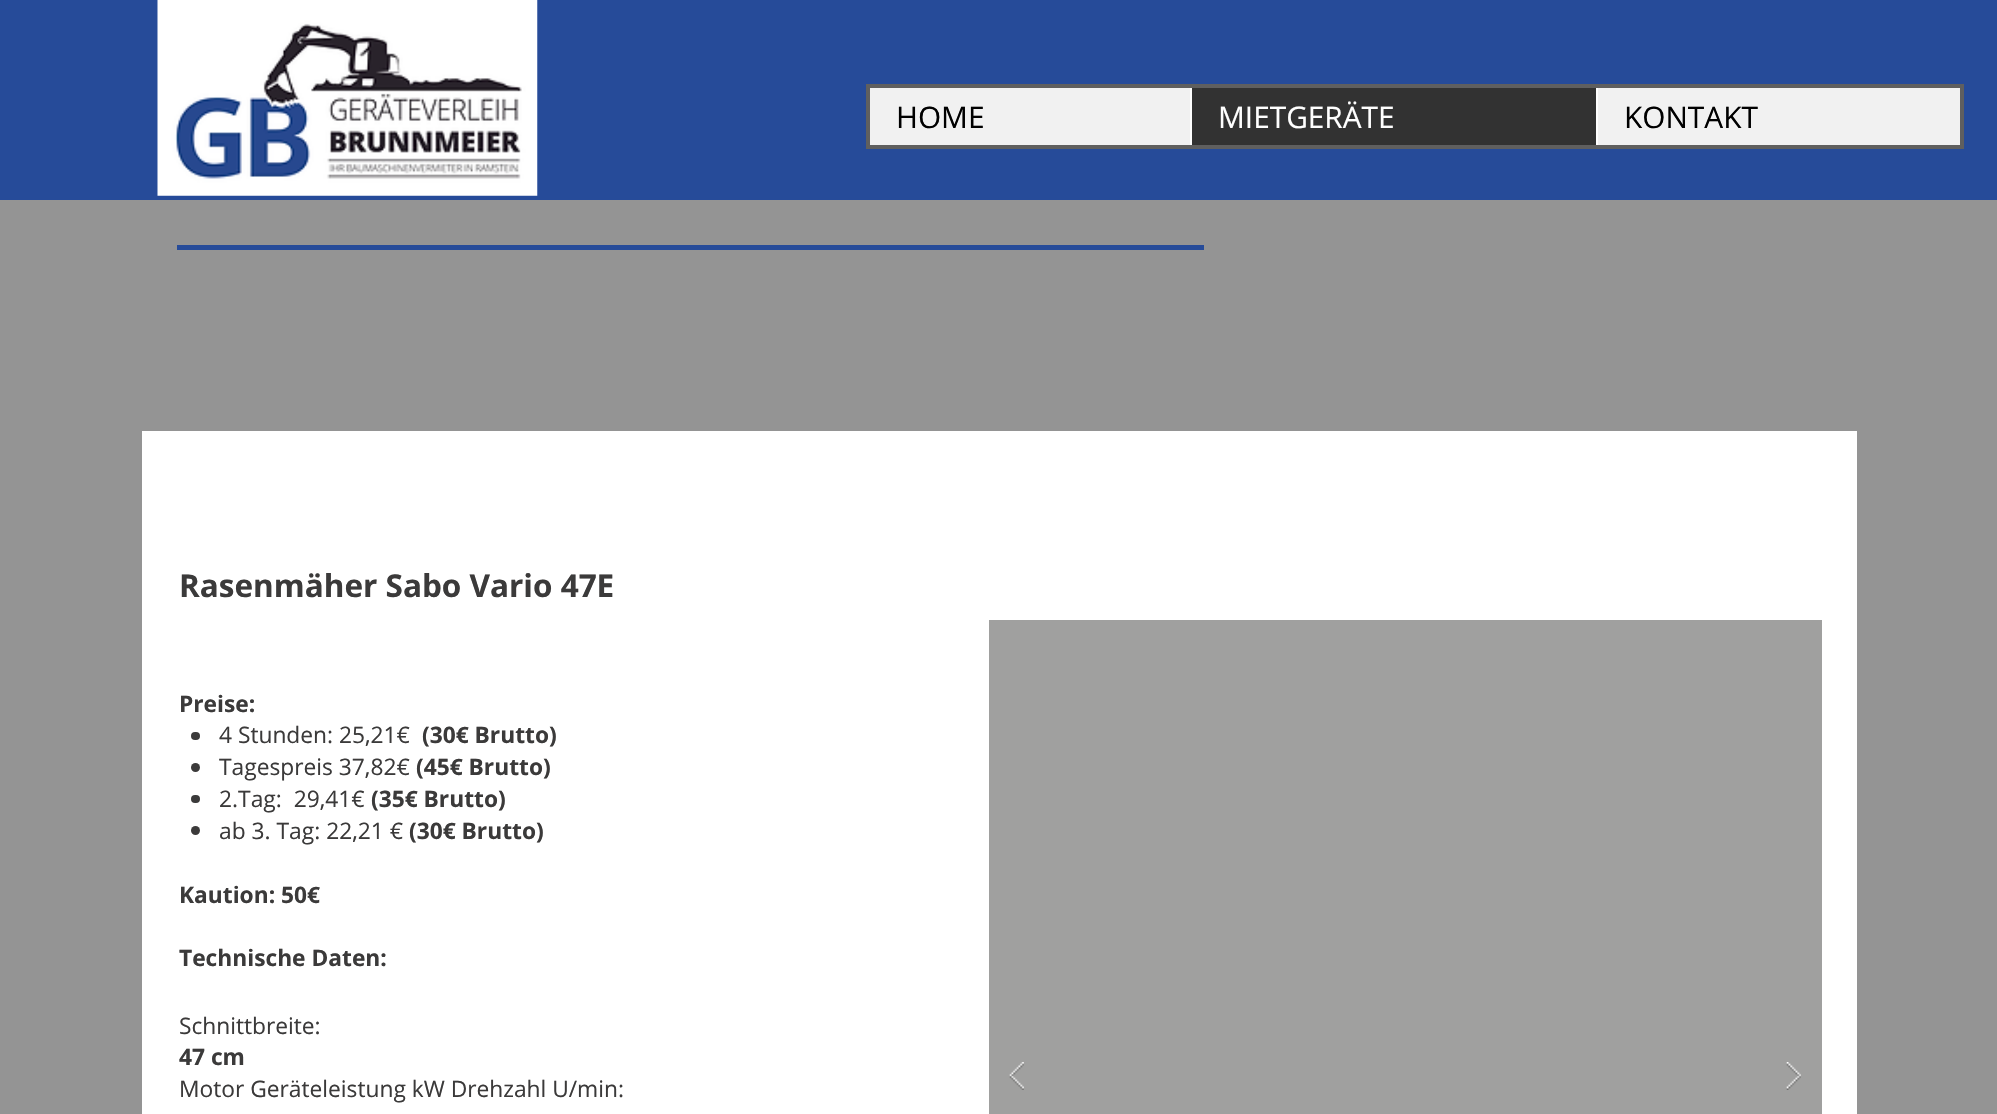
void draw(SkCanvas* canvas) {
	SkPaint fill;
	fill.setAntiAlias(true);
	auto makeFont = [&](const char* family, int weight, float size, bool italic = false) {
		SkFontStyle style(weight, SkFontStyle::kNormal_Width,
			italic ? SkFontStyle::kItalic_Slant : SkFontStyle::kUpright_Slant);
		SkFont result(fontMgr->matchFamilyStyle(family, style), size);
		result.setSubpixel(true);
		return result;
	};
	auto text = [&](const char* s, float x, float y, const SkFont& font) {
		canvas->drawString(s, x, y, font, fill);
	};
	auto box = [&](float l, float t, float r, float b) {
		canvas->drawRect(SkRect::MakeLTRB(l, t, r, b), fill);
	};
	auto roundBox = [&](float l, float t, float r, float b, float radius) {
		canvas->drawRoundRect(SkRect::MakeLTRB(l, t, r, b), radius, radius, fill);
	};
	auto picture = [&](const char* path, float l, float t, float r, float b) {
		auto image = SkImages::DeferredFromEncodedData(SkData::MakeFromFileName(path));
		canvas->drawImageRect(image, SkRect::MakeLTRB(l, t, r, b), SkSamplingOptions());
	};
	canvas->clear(0xFF949494);
	fill.setColor(0xFF264B99);
	box(0, 0, 1997, 200);
	picture("image0.png", 157, 0, 538, 196);
	fill.setColor(0xFFF1F1F1);
	canvas->drawRect(SkRect::MakeLTRB(868, 86, 1962, 147), fill);
	fill.setStyle(SkPaint::kStroke_Style);
	fill.setStrokeWidth(4);
	fill.setColor(0xFF5F5F5F);
	canvas->drawRect(SkRect::MakeLTRB(868, 86, 1962, 147), fill);
	fill.setStyle(SkPaint::kFill_Style);
	fill.setColor(0xFF323232);
	box(1192, 88, 1596, 145);
	fill.setColor(0xFFFFFFFF);
	box(1190, 88, 1192, 145);
	box(1596, 88, 1598, 145);
	fill.setColor(0xFF264B99);
	box(177, 245, 1204, 250);
	fill.setColor(0xFFFFFFFF);
	box(142, 431, 1857, 1114);
	fill.setColor(0xFF3B3A3A);
	roundBox(191, 732, 200, 740, 4);
	canvas->drawCircle(195.5f, 767.5f, 4.5f, fill);
	roundBox(191, 795, 200, 803, 4);
	canvas->drawCircle(195.5f, 830.5f, 4.5f, fill);
	fill.setColor(0xFFA0A09F);
	box(989, 620, 1822, 1114);
	picture("image1.png", 1009, 1062, 1024, 1090);
	picture("image2.png", 1786, 1062, 1801, 1090);
	auto font1 = makeFont("Open Sans", 400, 29.75f);
	fill.setColor(0xFF000000);
	text("HOME", 896, 128, font1);
	fill.setColor(0xFFFFFFFF);
	text("MIETGERÄTE", 1218, 128, font1);
	fill.setColor(0xFF000000);
	text("KONTAKT", 1624, 128, font1);
	auto font2 = makeFont("Open Sans", 700, 31.5f);
	fill.setColor(0xFF3B3A3A);
	text("Rasenmäher Sabo Vario 47E", 179, 597, font2);
	auto font3 = makeFont("Open Sans", 700, 22.75f);
	text("Preise:", 179, 712, font3);
	auto font4 = makeFont("Open Sans", 400, 22.75f);
	text("4 Stunden: 25,21€", 219, 743, font4);
	text("(30€ Brutto)", 422, 743, font3);
	text("Tagespreis 37,82€", 219, 775, font4);
	text("(45€ Brutto)", 416, 775, font3);
	text("2.Tag:  29,41€", 219, 807, font4);
	text("(35€ Brutto)", 371, 807, font3);
	text("ab 3. Tag: 22,21 €", 219, 839, font4);
	text("(30€ Brutto)", 409, 839, font3);
	text("Kaution: 50€", 179, 903, font3);
	text("Technische Daten:", 179, 966, font3);
	text("Schnittbreite:", 179, 1034, font4);
	text("47 cm", 179, 1065, font3);
	text("Motor Geräteleistung kW Drehzahl U/min:", 179, 1097, font4);
}
